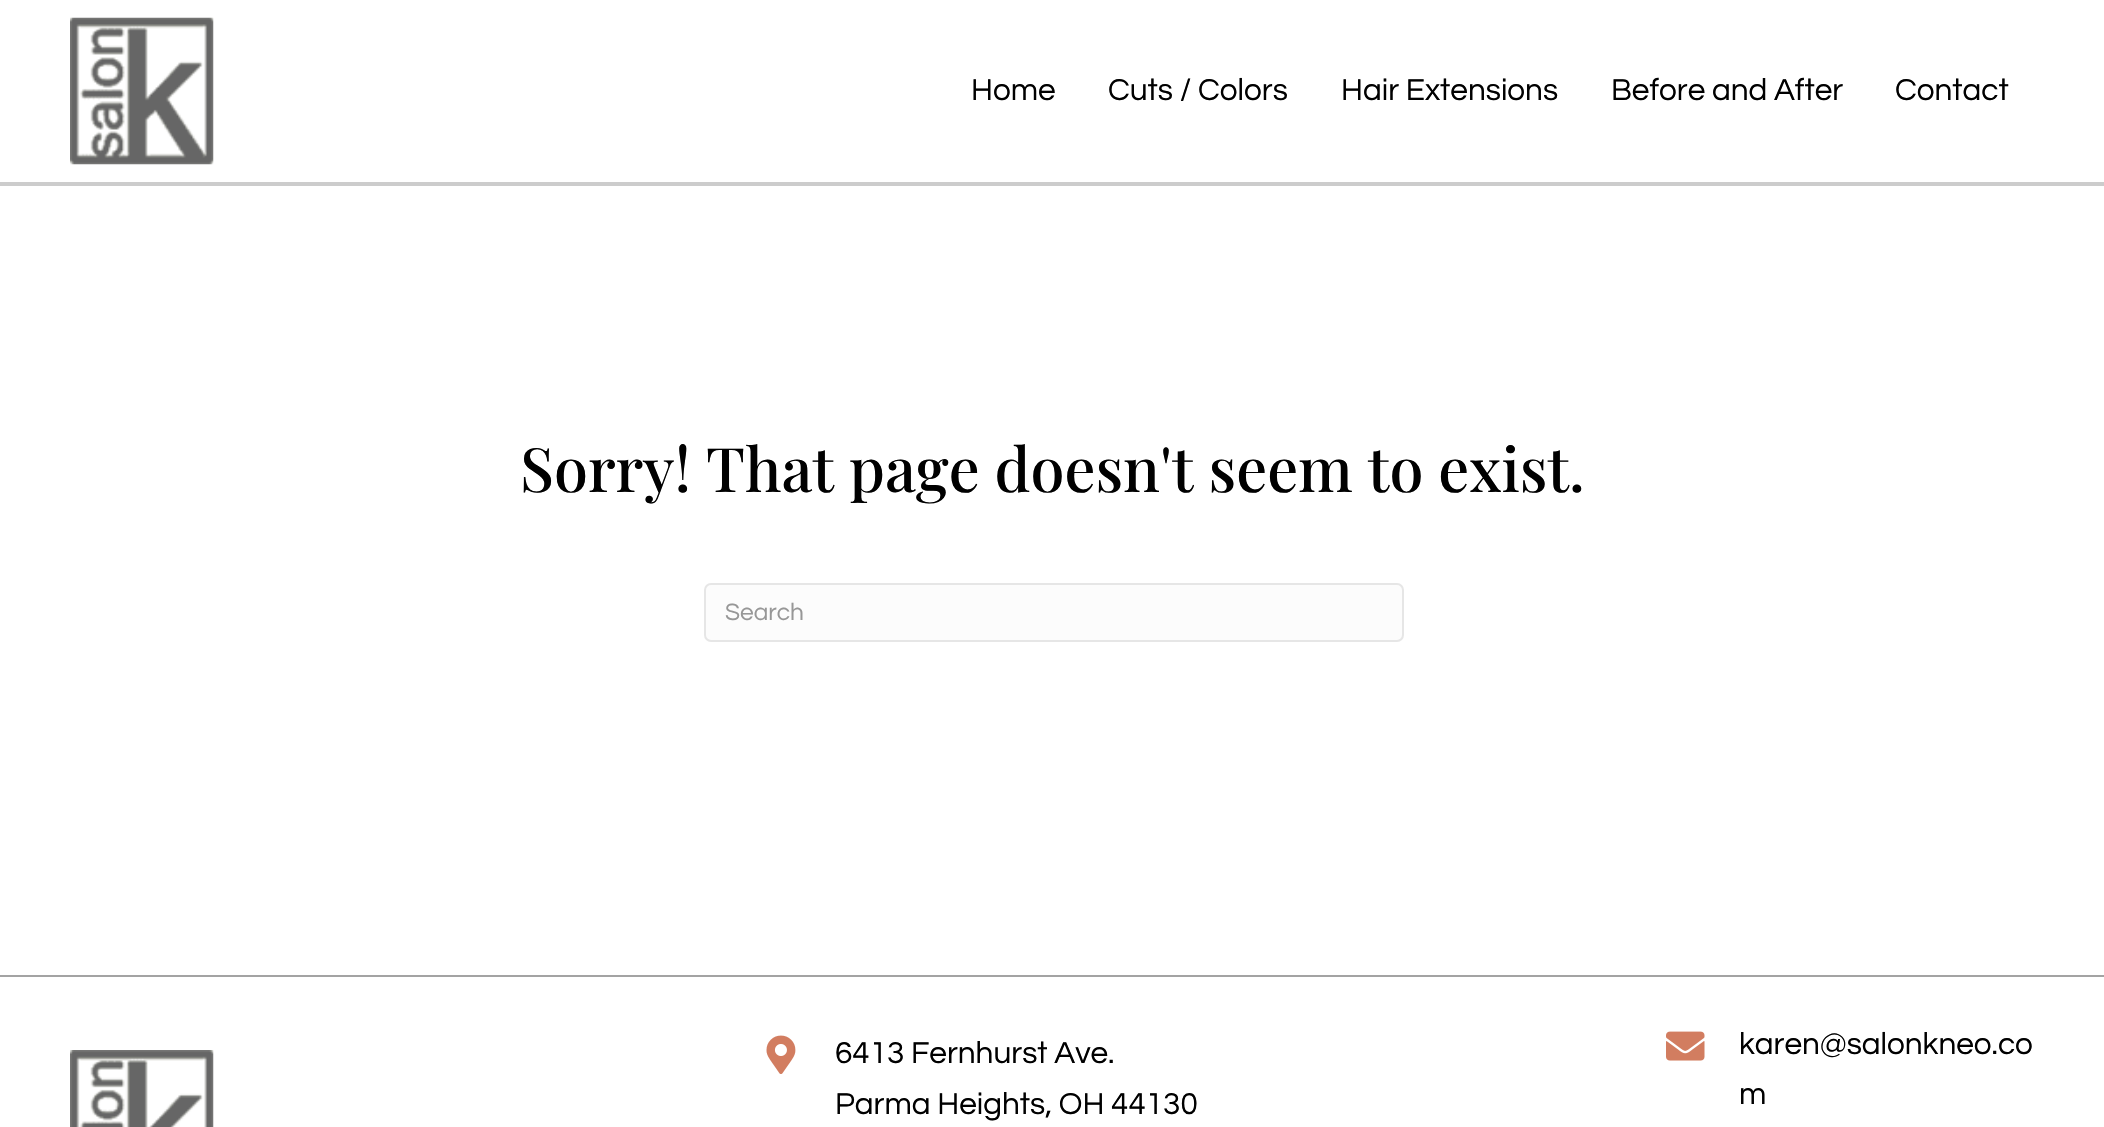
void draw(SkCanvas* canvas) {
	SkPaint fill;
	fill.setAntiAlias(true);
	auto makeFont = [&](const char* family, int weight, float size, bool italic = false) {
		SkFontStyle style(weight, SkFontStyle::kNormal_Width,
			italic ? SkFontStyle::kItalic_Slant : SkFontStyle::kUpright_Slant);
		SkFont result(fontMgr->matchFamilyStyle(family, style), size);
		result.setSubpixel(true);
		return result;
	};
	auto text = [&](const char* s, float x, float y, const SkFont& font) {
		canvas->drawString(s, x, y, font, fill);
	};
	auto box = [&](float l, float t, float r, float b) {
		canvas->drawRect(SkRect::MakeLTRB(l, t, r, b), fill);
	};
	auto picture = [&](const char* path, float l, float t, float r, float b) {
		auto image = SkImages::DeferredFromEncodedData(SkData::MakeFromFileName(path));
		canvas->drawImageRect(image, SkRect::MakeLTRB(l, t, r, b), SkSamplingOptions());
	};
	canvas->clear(0xFFFFFFFF);
	fill.setColor(0xFFCCCCCC);
	box(0, 182, 2104, 186);
	picture("image0.png", 70, 17, 214, 165);
	fill.setColor(0xFFFCFCFC);
	canvas->drawRoundRect(SkRect::MakeLTRB(705, 584, 1403, 641), 6, 6, fill);
	fill.setStyle(SkPaint::kStroke_Style);
	fill.setStrokeWidth(2);
	fill.setColor(0xFFE6E6E6);
	canvas->drawRoundRect(SkRect::MakeLTRB(705, 584, 1403, 641), 6, 6, fill);
	fill.setStyle(SkPaint::kFill_Style);
	fill.setColor(0xFFA3A3A3);
	box(0, 975, 2104, 977);
	picture("image1.png", 70, 1050, 214, 1127);
	picture("image2.png", 766, 1035, 796, 1074);
	picture("image3.png", 1666, 1031, 1705, 1061);
	auto font1 = makeFont("Questrial", 400, 31.5f);
	fill.setColor(0xFF000000);
	text("Home", 971, 100, font1);
	text("Cuts / Colors", 1108, 100, font1);
	text("Hair Extensions", 1341, 100, font1);
	text("Before and After", 1611, 100, font1);
	text("Contact", 1895, 100, font1);
	auto font2 = makeFont("Playfair Display", 500, 61.25f);
	text("Sorry! That page doesn't seem to exist.", 520, 492, font2);
	auto font3 = makeFont("Questrial", 400, 24.5f);
	fill.setColor(0xFF979797);
	text("Search", 725, 620, font3);
	fill.setColor(0xFF000000);
	text("6413 Fernhurst Ave.", 835, 1063, font1);
	text("Parma Heights, OH 44130", 835, 1114, font1);
	text("karen@salonkneo.co", 1739, 1054, font1);
	text("m", 1739, 1104, font1);
}
